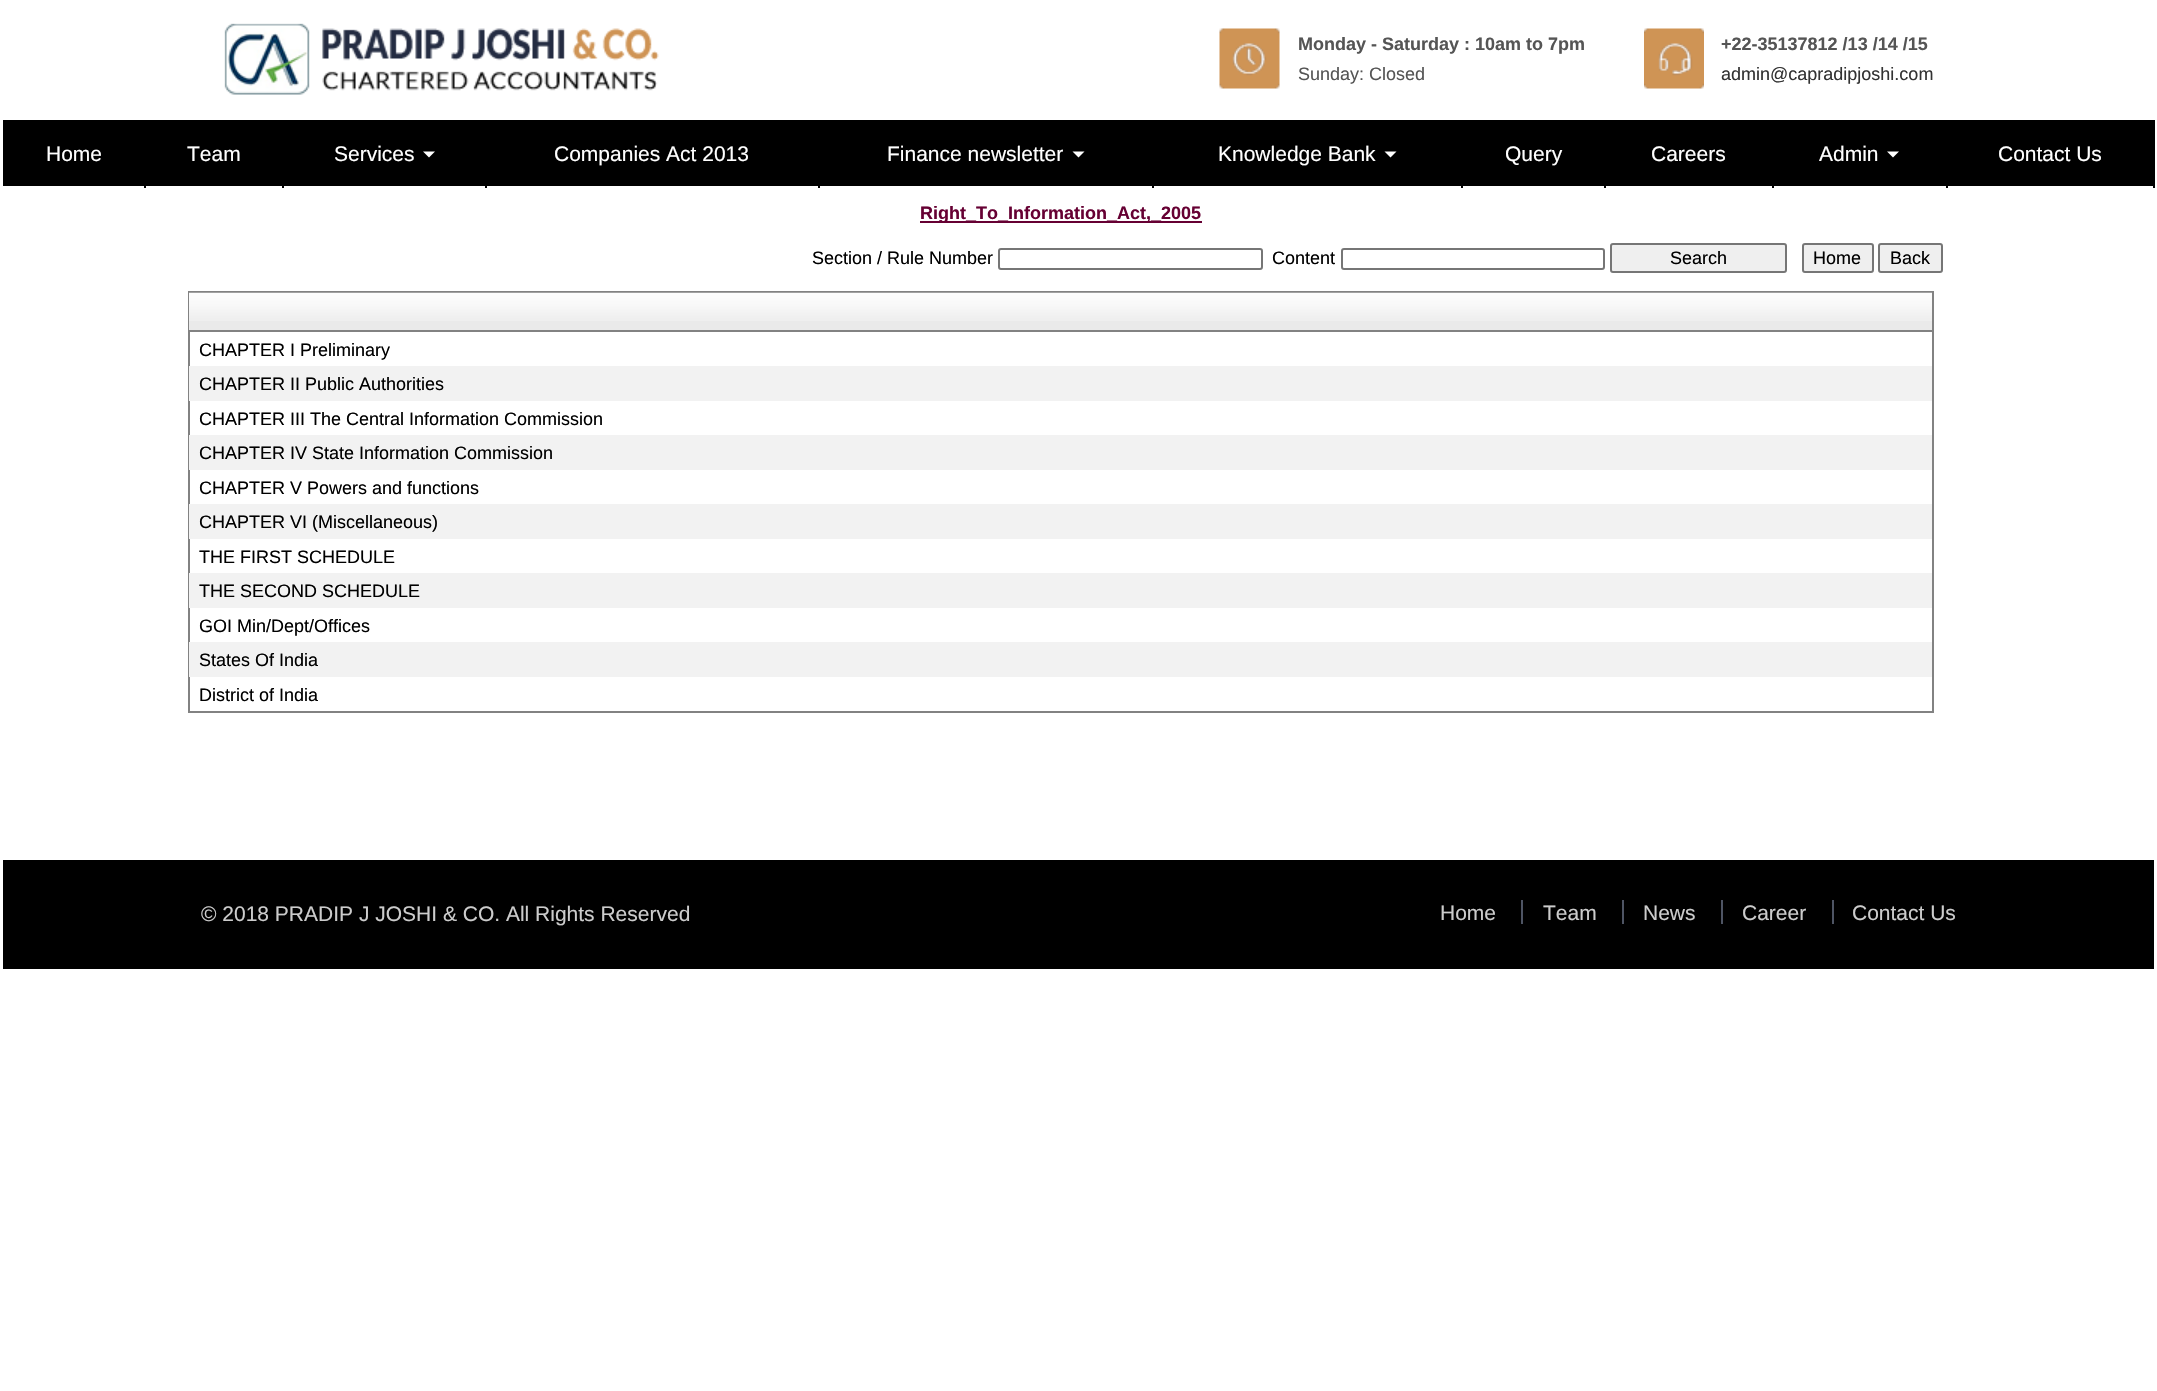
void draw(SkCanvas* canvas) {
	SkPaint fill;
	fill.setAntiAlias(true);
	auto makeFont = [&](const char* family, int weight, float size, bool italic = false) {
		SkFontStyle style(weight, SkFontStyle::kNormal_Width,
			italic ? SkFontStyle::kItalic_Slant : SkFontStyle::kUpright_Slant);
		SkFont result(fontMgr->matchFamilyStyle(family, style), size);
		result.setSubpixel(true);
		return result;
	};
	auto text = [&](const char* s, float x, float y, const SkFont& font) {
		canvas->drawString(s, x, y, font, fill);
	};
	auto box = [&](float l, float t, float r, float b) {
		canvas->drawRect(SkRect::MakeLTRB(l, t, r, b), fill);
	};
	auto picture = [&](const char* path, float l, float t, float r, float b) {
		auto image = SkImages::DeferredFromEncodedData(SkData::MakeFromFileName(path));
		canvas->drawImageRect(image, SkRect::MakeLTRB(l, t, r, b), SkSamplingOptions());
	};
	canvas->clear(0xFFFFFFFF);
	picture("image0.png", 224, 23, 659, 95);
	picture("image1.png", 1219, 28, 1280, 89);
	picture("image2.png", 1644, 28, 1704, 89);
	fill.setColor(0xFF000000);
	box(3, 120, 2153, 186);
	box(144, 186, 146, 188);
	box(282, 186, 284, 188);
	box(485, 186, 487, 188);
	fill.setColor(0xFFFFFFFF);
	canvas->drawPath(SkPathBuilder().moveTo(423, 151.5f).lineTo(435, 151.5f).lineTo(429, 157.5f).close().detach(), fill);
	fill.setColor(0xFF000000);
	box(818, 186, 820, 188);
	box(1152, 186, 1154, 188);
	fill.setColor(0xFFFFFFFF);
	canvas->drawPath(SkPathBuilder().moveTo(1072.5f, 151.5f).lineTo(1084.5f, 151.5f).lineTo(1078.5f, 157.5f).close().detach(), fill);
	fill.setColor(0xFF000000);
	box(1461, 186, 1463, 188);
	fill.setColor(0xFFFFFFFF);
	canvas->drawPath(SkPathBuilder().moveTo(1384.5f, 151.5f).lineTo(1396.5f, 151.5f).lineTo(1390.5f, 157.5f).close().detach(), fill);
	fill.setColor(0xFF000000);
	box(1604, 186, 1606, 188);
	box(1772, 186, 1774, 188);
	box(1946, 186, 1948, 188);
	fill.setColor(0xFFFFFFFF);
	canvas->drawPath(SkPathBuilder().moveTo(1887, 151.5f).lineTo(1899, 151.5f).lineTo(1893, 157.5f).close().detach(), fill);
	fill.setColor(0xFF000000);
	box(2153, 120, 2155, 188);
	fill.setColor(0xFF660033);
	box(920, 221, 1202, 223);
	fill.setStyle(SkPaint::kStroke_Style);
	fill.setStrokeWidth(2);
	fill.setColor(0xFF767676);
	canvas->drawRoundRect(SkRect::MakeLTRB(999, 249, 1262, 269), 2, 2, fill);
	canvas->drawRoundRect(SkRect::MakeLTRB(1342, 249, 1604, 269), 2, 2, fill);
	fill.setStyle(SkPaint::kFill_Style);
	fill.setColor(0xFFEFEFEF);
	canvas->drawRoundRect(SkRect::MakeLTRB(1611, 244, 1786, 272), 2, 2, fill);
	fill.setStyle(SkPaint::kStroke_Style);
	fill.setColor(0xFF767676);
	canvas->drawRoundRect(SkRect::MakeLTRB(1611, 244, 1786, 272), 2, 2, fill);
	fill.setStyle(SkPaint::kFill_Style);
	fill.setColor(0xFFEFEFEF);
	canvas->drawRoundRect(SkRect::MakeLTRB(1803, 244, 1873, 272), 2, 2, fill);
	fill.setStyle(SkPaint::kStroke_Style);
	fill.setColor(0xFF767676);
	canvas->drawRoundRect(SkRect::MakeLTRB(1803, 244, 1873, 272), 2, 2, fill);
	fill.setStyle(SkPaint::kFill_Style);
	fill.setColor(0xFFEFEFEF);
	canvas->drawRoundRect(SkRect::MakeLTRB(1879, 244, 1942, 272), 2, 2, fill);
	fill.setStyle(SkPaint::kStroke_Style);
	fill.setColor(0xFF767676);
	canvas->drawRoundRect(SkRect::MakeLTRB(1879, 244, 1942, 272), 2, 2, fill);
	fill.setColor(0xFF828282);
	canvas->drawRect(SkRect::MakeLTRB(189, 292, 1933, 712), fill);
	fill.setStyle(SkPaint::kFill_Style);
	fill.setColor(0xFFEAEAEA);
	box(189, 321, 1932, 330);
	picture("image3.png", 189, 292, 1932, 321);
	fill.setColor(0xFF828282);
	box(189, 330, 1932, 332);
	fill.setColor(0xFFF2F2F2);
	box(189, 366, 1932, 401);
	box(189, 435, 1932, 470);
	box(189, 504, 1932, 539);
	box(189, 573, 1932, 608);
	box(189, 642, 1932, 677);
	fill.setColor(0xFF000000);
	box(3, 860, 2154, 969);
	fill.setColor(0xFF4E5463);
	box(1521, 900, 1523, 924);
	box(1622, 900, 1624, 924);
	box(1721, 900, 1723, 924);
	box(1832, 900, 1834, 924);
	auto font1 = makeFont("Liberation Sans", 700, 18);
	fill.setColor(0xFF555555);
	text("Monday - Saturday : 10am to 7pm", 1298, 50, font1);
	auto font2 = makeFont("Liberation Sans", 400, 18);
	text("Sunday: Closed", 1298, 80, font2);
	text("+22-35137812 /13 /14 /15", 1721, 50, font1);
	fill.setColor(0xFF333333);
	text("admin@capradipjoshi.com", 1721, 80, font2);
	auto font3 = makeFont("Liberation Sans", 400, 21);
	fill.setColor(0xFFFFFFFF);
	text("Home", 46, 161, font3);
	text("Team", 187, 161, font3);
	text("Services", 334, 161, font3);
	text("Companies Act 2013", 554, 161, font3);
	text("Finance newsletter", 887, 161, font3);
	text("Knowledge Bank", 1218, 161, font3);
	text("Query", 1505, 161, font3);
	text("Careers", 1651, 161, font3);
	text("Admin", 1819, 161, font3);
	text("Contact Us", 1998, 161, font3);
	fill.setColor(0xFF660033);
	text("Right_To_Information_Act,_2005", 920, 219, font1);
	fill.setColor(0xFF000000);
	text("Section / Rule Number", 812, 264, font2);
	text("Content", 1272, 264, font2);
	text("Search", 1670, 264, font2);
	text("Home", 1813, 264, font2);
	text("Back", 1890, 264, font2);
	text("CHAPTER I Preliminary", 199, 356, font2);
	text("CHAPTER II Public Authorities", 199, 390, font2);
	text("CHAPTER III The Central Information Commission", 199, 425, font2);
	text("CHAPTER IV State Information Commission", 199, 459, font2);
	text("CHAPTER V Powers and functions", 199, 494, font2);
	text("CHAPTER VI (Miscellaneous)", 199, 528, font2);
	text("THE FIRST SCHEDULE", 199, 563, font2);
	text("THE SECOND SCHEDULE", 199, 597, font2);
	text("GOI Min/Dept/Offices", 199, 632, font2);
	text("States Of India", 199, 666, font2);
	text("District of India", 199, 701, font2);
	fill.setColor(0xFFCCCCCC);
	text("© 2018 PRADIP J JOSHI & CO. All Rights Reserved", 201, 921, font3);
	text("Home", 1440, 920, font3);
	text("Team", 1543, 920, font3);
	text("News", 1643, 920, font3);
	text("Career", 1742, 920, font3);
	text("Contact Us", 1852, 920, font3);
}
